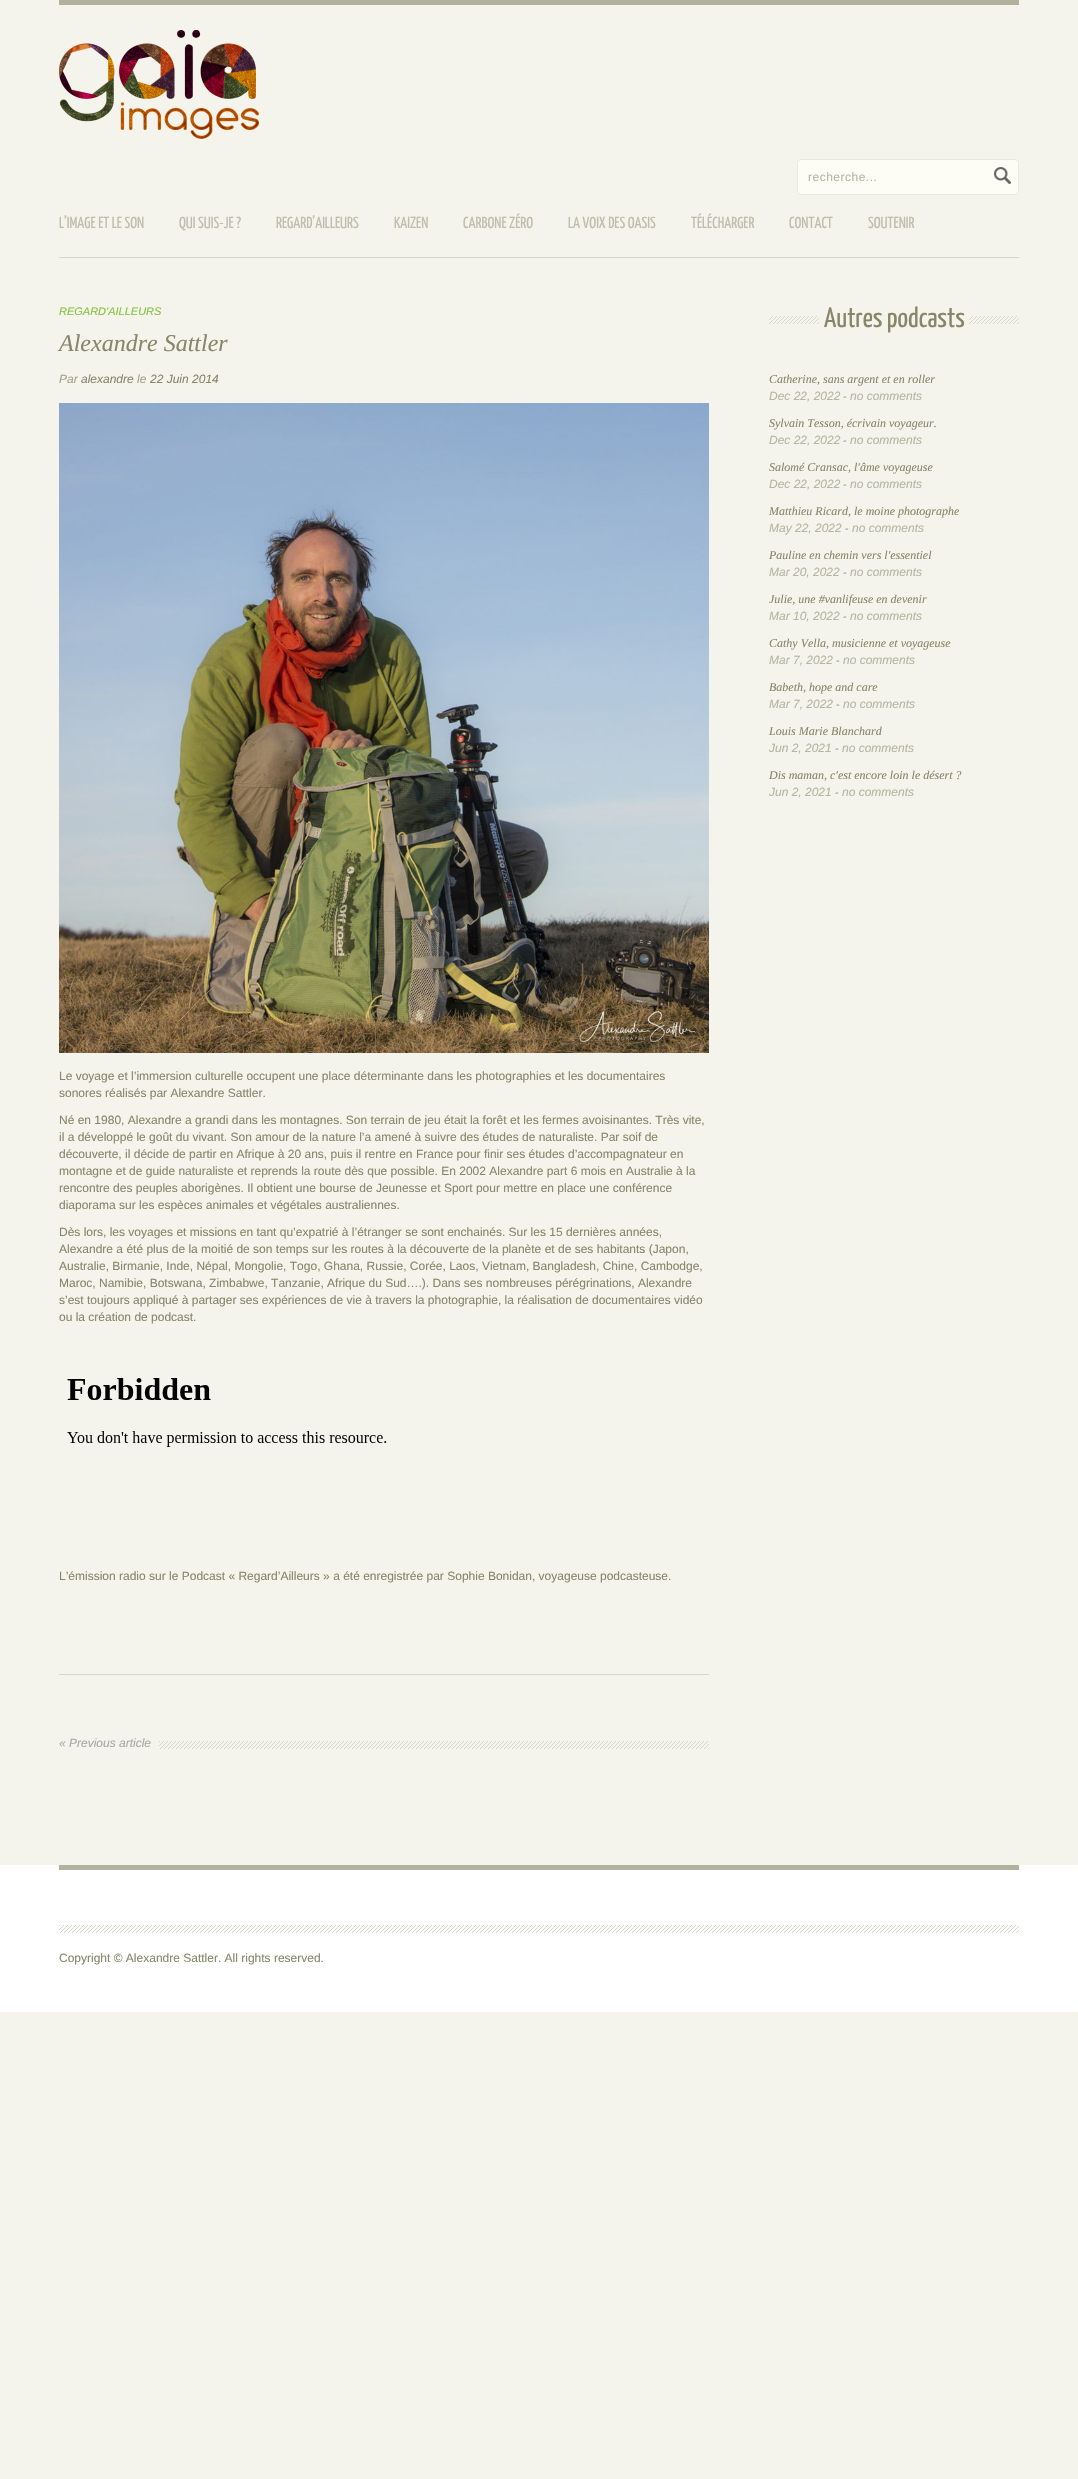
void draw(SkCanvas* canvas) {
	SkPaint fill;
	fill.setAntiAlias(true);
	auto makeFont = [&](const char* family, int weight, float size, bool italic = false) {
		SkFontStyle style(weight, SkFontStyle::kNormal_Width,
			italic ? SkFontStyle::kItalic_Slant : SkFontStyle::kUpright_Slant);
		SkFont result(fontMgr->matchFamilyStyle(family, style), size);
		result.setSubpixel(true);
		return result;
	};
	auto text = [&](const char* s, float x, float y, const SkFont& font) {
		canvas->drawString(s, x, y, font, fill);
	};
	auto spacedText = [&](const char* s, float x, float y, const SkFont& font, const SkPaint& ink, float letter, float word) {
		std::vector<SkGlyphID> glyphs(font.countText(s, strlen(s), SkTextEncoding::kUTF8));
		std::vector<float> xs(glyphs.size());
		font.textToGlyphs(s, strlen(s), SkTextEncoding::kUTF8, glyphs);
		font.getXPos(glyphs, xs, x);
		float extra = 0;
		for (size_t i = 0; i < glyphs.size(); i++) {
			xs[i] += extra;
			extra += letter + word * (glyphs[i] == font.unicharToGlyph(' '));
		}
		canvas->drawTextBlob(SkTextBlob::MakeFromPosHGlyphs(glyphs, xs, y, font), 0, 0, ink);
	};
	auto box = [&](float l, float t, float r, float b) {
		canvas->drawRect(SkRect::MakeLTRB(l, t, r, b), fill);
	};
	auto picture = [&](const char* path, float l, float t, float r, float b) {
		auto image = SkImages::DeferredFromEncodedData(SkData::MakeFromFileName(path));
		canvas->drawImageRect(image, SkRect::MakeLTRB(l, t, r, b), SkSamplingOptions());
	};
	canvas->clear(0xFFF4F3EC);
	fill.setColor(0xFFD7D6CC);
	box(59, 257, 1019, 258);
	fill.setColor(0xFFB2B19D);
	box(59, 0, 1019, 5);
	picture("image0.png", 59, 30, 259, 139);
	fill.setColor(0xFFFDFCF5);
	canvas->drawRoundRect(SkRect::MakeLTRB(797.5f, 159.5f, 1018.5f, 194.5f), 3.5f, 3.5f, fill);
	fill.setStyle(SkPaint::kStroke_Style);
	fill.setStrokeWidth(1);
	fill.setColor(0xFFE8E7E1);
	canvas->drawRoundRect(SkRect::MakeLTRB(797.5f, 159.5f, 1018.5f, 194.5f), 3.5f, 3.5f, fill);
	picture("image1.png", 994, 167, 1011, 184);
	fill.setStyle(SkPaint::kFill_Style);
	fill.setColor(0xFFD7D6CC);
	box(59, 1674, 709, 1675);
	picture("image2.png", 59, 403, 709, 1053);
	picture("image3.png", 67, 1378, 387, 1447);
	picture("image4.png", 159, 1741, 709, 1749);
	picture("image5.png", 769, 316, 1019, 324);
	fill.setColor(0xFFF4F3EC);
	box(819, 316, 969, 324);
	fill.setColor(0xFFFFFFFF);
	box(0, 1865, 1078, 2012);
	fill.setColor(0xFFB2B19D);
	box(59, 1865, 1019, 1870);
	picture("image6.png", 59, 1925, 1019, 1933);
	auto font1 = makeFont("Liberation Sans", 400, 12);
	fill.setColor(0xFFB6B6A3);
	spacedText("recherche...", 808, 181, font1, fill, 0.5f, 0);
	auto font2 = makeFont("Yanone Kaffeesatz", 200, 16);
	fill.setColor(0xFFBFBEAC);
	text("L’IMAGE ET LE SON", 59, 228, font2);
	text("QUI SUIS-JE ?", 179, 228, font2);
	text("REGARD’AILLEURS", 276, 228, font2);
	text("KAIZEN", 394, 228, font2);
	text("CARBONE ZÉRO", 463, 228, font2);
	text("LA VOIX DES OASIS", 568, 228, font2);
	text("TÉLÉCHARGER", 691, 228, font2);
	text("CONTACT", 789, 228, font2);
	text("SOUTENIR", 868, 228, font2);
	auto font3 = makeFont("Liberation Sans", 400, 11, true);
	fill.setColor(0xFF85C441);
	text("REGARD'AILLEURS", 59, 315, font3);
	auto font4 = makeFont("Liberation Serif", 400, 24, true);
	fill.setColor(0xFF878669);
	text("Alexandre Sattler", 59, 351, font4);
	auto font5 = makeFont("Liberation Sans", 400, 12, true);
	fill.setColor(0xFFA3A38B);
	text("Par", 59, 383, font5);
	fill.setColor(0xFF878669);
	text("alexandre", 81, 383, font5);
	fill.setColor(0xFFA3A38B);
	text("le", 137, 383, font5);
	fill.setColor(0xFF878669);
	text("22 Juin 2014", 150, 383, font5);
	text("Le voyage et l’immersion culturelle occupent une place déterminante dans les photographies et les documentaires", 59, 1080, font1);
	text("sonores réalisés par Alexandre Sattler.", 59, 1097, font1);
	text("Né en 1980, Alexandre a grandi dans les montagnes. Son terrain de jeu était la forêt et les fermes avoisinantes. Très vite,", 59, 1124, font1);
	text("il a développé le goût du vivant. Son amour de la nature l’a amené à suivre des études de naturaliste. Par soif de", 59, 1141, font1);
	text("découverte, il décide de partir en Afrique à 20 ans, puis il rentre en France pour finir ses études d’accompagnateur en", 59, 1158, font1);
	text("montagne et de guide naturaliste et reprends la route dès que possible. En 2002 Alexandre part 6 mois en Australie à la", 59, 1175, font1);
	text("rencontre des peuples aborigènes. Il obtient une bourse de Jeunesse et Sport pour mettre en place une conférence", 59, 1192, font1);
	text("diaporama sur les espèces animales et végétales australiennes.", 59, 1209, font1);
	text("Dès lors, les voyages et missions en tant qu’expatrié à l’étranger se sont enchainés. Sur les 15 dernières années,", 59, 1236, font1);
	text("Alexandre a été plus de la moitié de son temps sur les routes à la découverte de la planète et de ses habitants (Japon,", 59, 1253, font1);
	text("Australie, Birmanie, Inde, Népal, Mongolie, Togo, Ghana, Russie, Corée, Laos, Vietnam, Bangladesh, Chine, Cambodge,", 59, 1270, font1);
	text("Maroc, Namibie, Botswana, Zimbabwe, Tanzanie, Afrique du Sud….). Dans ses nombreuses pérégrinations, Alexandre", 59, 1287, font1);
	text("s’est toujours appliqué à partager ses expériences de vie à travers la photographie, la réalisation de documentaires vidéo", 59, 1304, font1);
	text("ou la création de podcast.", 59, 1321, font1);
	text("L’émission radio sur le Podcast « Regard’Ailleurs » a été enregistrée par Sophie Bonidan, voyageuse podcasteuse.", 59, 1580, font1);
	fill.setColor(0xFFA8A8A8);
	text("« Previous article", 59, 1747, font5);
	auto font6 = makeFont("Yanone Kaffeesatz", 200, 28);
	fill.setColor(0xFF878669);
	text("Autres podcasts", 824, 327, font6);
	auto font7 = makeFont("Liberation Serif", 400, 12, true);
	text("Catherine, sans argent et en roller", 769, 383, font7);
	fill.setColor(0xFFB6B6A3);
	text("Dec 22, 2022", 769, 400, font5);
	auto font8 = makeFont("Liberation Sans", 400, 11);
	fill.setColor(0xFF999999);
	text("-", 843, 400, font8);
	fill.setColor(0xFFB6B6A3);
	text("no comments", 850, 400, font5);
	fill.setColor(0xFF878669);
	text("Sylvain Tesson, écrivain voyageur.", 769, 427, font7);
	fill.setColor(0xFFB6B6A3);
	text("Dec 22, 2022", 769, 444, font5);
	fill.setColor(0xFF999999);
	text("-", 843, 444, font8);
	fill.setColor(0xFFB6B6A3);
	text("no comments", 850, 444, font5);
	fill.setColor(0xFF878669);
	text("Salomé Cransac, l'âme voyageuse", 769, 471, font7);
	fill.setColor(0xFFB6B6A3);
	text("Dec 22, 2022", 769, 488, font5);
	fill.setColor(0xFF999999);
	text("-", 843, 488, font8);
	fill.setColor(0xFFB6B6A3);
	text("no comments", 850, 488, font5);
	fill.setColor(0xFF878669);
	text("Matthieu Ricard, le moine photographe", 769, 515, font7);
	fill.setColor(0xFFB6B6A3);
	text("May 22, 2022", 769, 532, font5);
	fill.setColor(0xFF999999);
	text("-", 845, 532, font8);
	fill.setColor(0xFFB6B6A3);
	text("no comments", 852, 532, font5);
	fill.setColor(0xFF878669);
	text("Pauline en chemin vers l'essentiel", 769, 559, font7);
	fill.setColor(0xFFB6B6A3);
	text("Mar 20, 2022", 769, 576, font5);
	fill.setColor(0xFF999999);
	text("-", 843, 576, font8);
	fill.setColor(0xFFB6B6A3);
	text("no comments", 850, 576, font5);
	fill.setColor(0xFF878669);
	text("Julie, une #vanlifeuse en devenir", 769, 603, font7);
	fill.setColor(0xFFB6B6A3);
	text("Mar 10, 2022", 769, 620, font5);
	fill.setColor(0xFF999999);
	text("-", 843, 620, font8);
	fill.setColor(0xFFB6B6A3);
	text("no comments", 850, 620, font5);
	fill.setColor(0xFF878669);
	text("Cathy Vella, musicienne et voyageuse", 769, 647, font7);
	fill.setColor(0xFFB6B6A3);
	text("Mar 7, 2022", 769, 664, font5);
	fill.setColor(0xFF999999);
	text("-", 836, 664, font8);
	fill.setColor(0xFFB6B6A3);
	text("no comments", 843, 664, font5);
	fill.setColor(0xFF878669);
	text("Babeth, hope and care", 769, 691, font7);
	fill.setColor(0xFFB6B6A3);
	text("Mar 7, 2022", 769, 708, font5);
	fill.setColor(0xFF999999);
	text("-", 836, 708, font8);
	fill.setColor(0xFFB6B6A3);
	text("no comments", 843, 708, font5);
	fill.setColor(0xFF878669);
	text("Louis Marie Blanchard", 769, 735, font7);
	fill.setColor(0xFFB6B6A3);
	text("Jun 2, 2021", 769, 752, font5);
	fill.setColor(0xFF999999);
	text("-", 835, 752, font8);
	fill.setColor(0xFFB6B6A3);
	text("no comments", 842, 752, font5);
	fill.setColor(0xFF878669);
	text("Dis maman, c'est encore loin le désert ?", 769, 779, font7);
	fill.setColor(0xFFB6B6A3);
	text("Jun 2, 2021", 769, 796, font5);
	fill.setColor(0xFF999999);
	text("-", 835, 796, font8);
	fill.setColor(0xFFB6B6A3);
	text("no comments", 842, 796, font5);
	fill.setColor(0xFF878669);
	text("Copyright © Alexandre Sattler. All rights reserved.", 59, 1962, font1);
}
